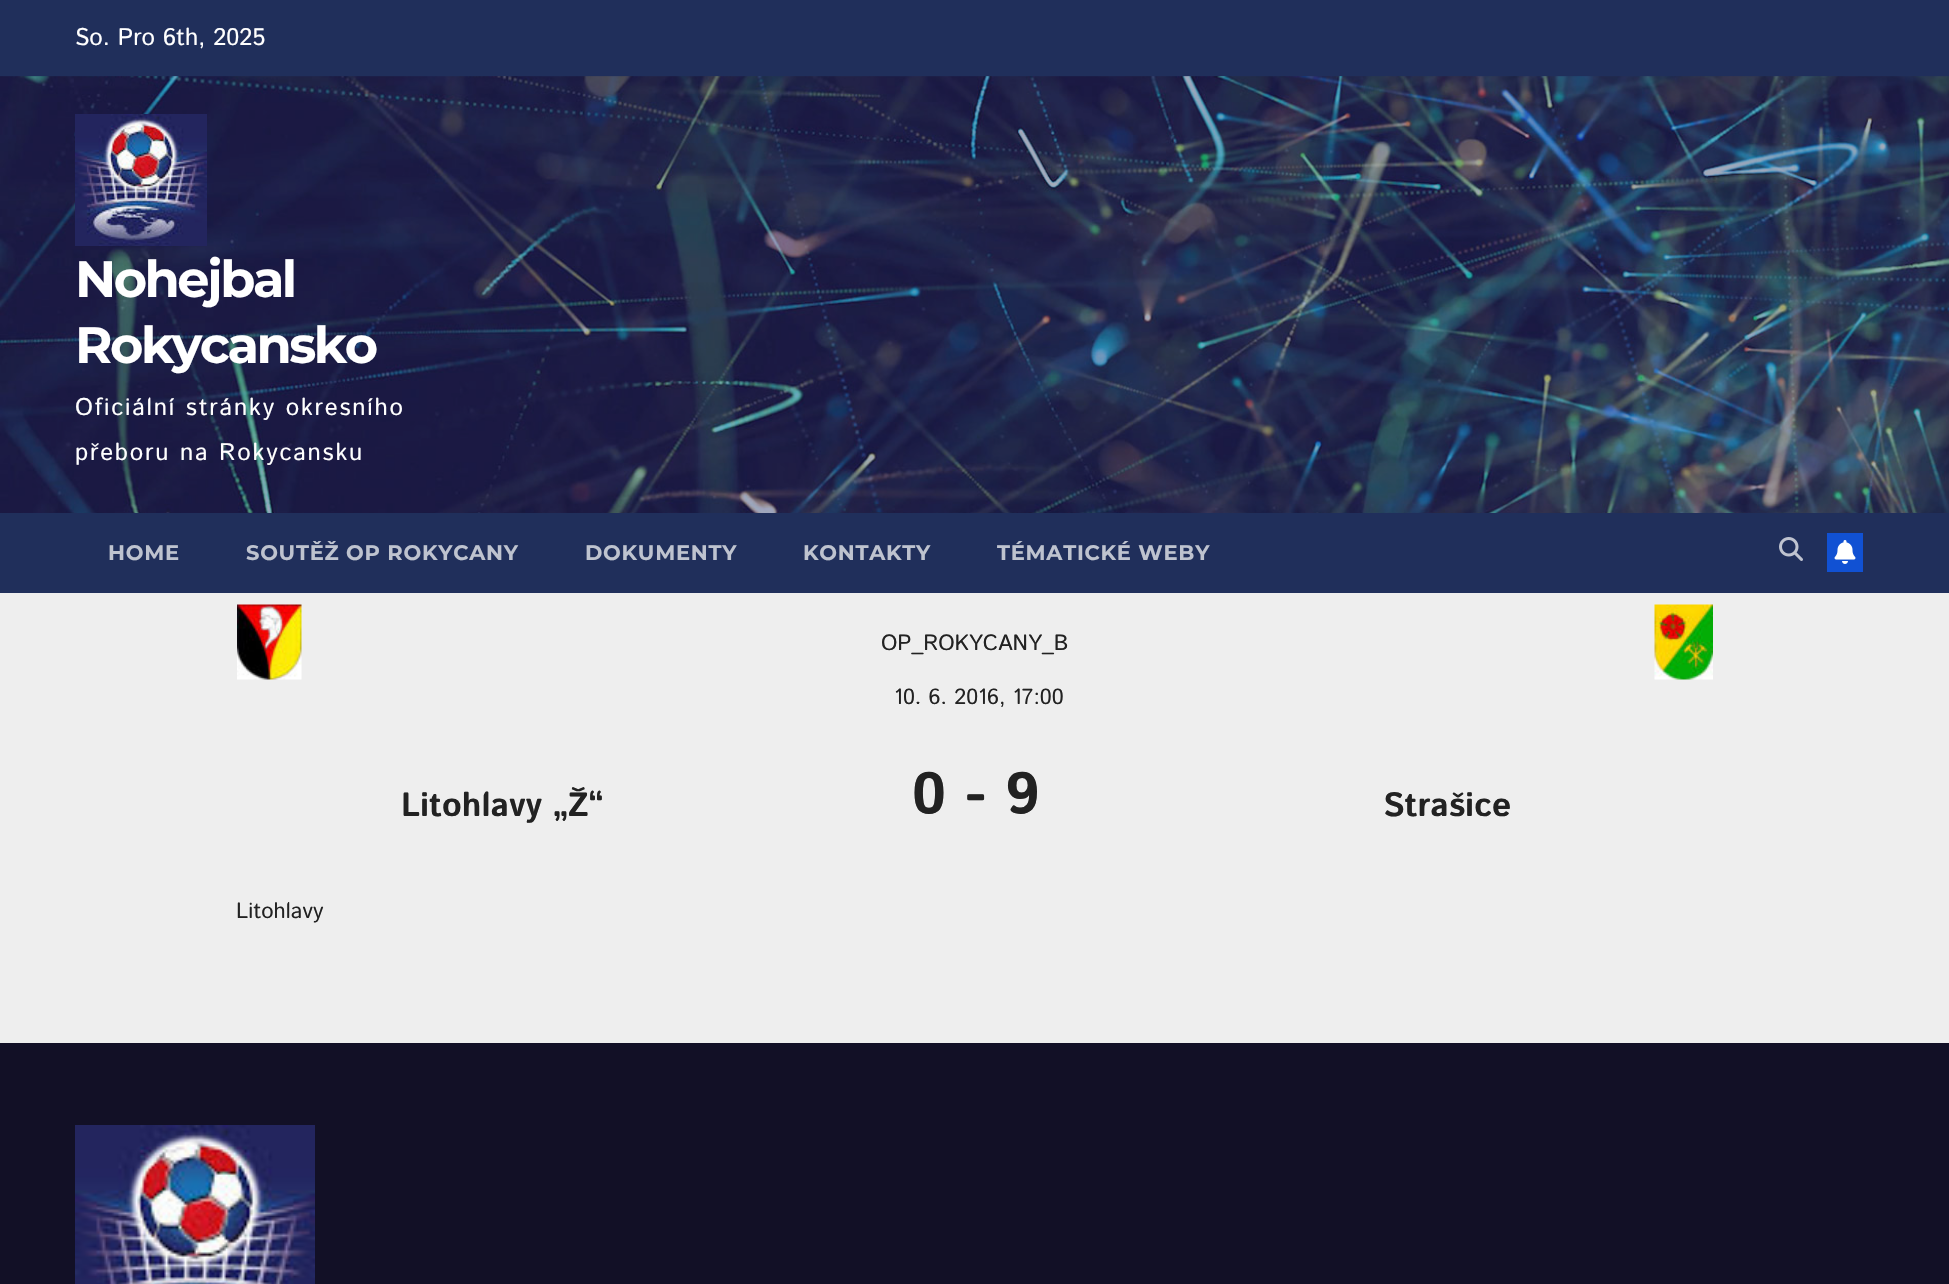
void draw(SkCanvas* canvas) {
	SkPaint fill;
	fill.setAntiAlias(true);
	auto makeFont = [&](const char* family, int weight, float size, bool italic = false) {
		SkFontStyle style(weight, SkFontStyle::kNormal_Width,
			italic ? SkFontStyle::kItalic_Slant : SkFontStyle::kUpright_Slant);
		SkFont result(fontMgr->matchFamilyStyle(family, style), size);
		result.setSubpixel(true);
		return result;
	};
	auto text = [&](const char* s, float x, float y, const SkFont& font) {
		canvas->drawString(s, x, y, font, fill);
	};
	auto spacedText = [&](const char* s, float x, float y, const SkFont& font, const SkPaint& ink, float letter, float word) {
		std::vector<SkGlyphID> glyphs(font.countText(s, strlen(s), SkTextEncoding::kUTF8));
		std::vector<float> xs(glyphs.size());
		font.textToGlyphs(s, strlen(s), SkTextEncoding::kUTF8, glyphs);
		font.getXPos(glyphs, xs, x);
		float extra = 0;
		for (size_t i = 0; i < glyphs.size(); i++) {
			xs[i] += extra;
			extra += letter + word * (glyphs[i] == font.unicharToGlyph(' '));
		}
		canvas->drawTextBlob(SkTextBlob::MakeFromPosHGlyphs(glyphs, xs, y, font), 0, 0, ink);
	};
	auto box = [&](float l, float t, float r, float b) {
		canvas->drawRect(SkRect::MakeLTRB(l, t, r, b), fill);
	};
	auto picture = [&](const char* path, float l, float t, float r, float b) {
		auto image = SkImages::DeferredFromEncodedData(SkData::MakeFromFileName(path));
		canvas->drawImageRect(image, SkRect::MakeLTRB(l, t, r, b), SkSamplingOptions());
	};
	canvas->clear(0xFFEEEEEE);
	fill.setColor(0xFF202F5B);
	box(0, 0, 1949, 77);
	picture("image0.png", 0, 76, 1949, 513);
	picture("image1.png", 75, 114, 207, 246);
	box(0, 513, 1949, 593);
	picture("image2.png", 1779, 537, 1803, 561);
	fill.setColor(0xFF1151D3);
	box(1827, 533, 1863, 572);
	picture("image3.png", 1834, 540, 1856, 564);
	picture("image4.png", 237, 604, 302, 680);
	picture("image5.png", 1654, 604, 1713, 680);
	fill.setColor(0xFF121026);
	box(0, 1043, 1949, 1284);
	picture("image6.png", 75, 1125, 315, 1284);
	auto font1 = makeFont("Istok Web", 400, 24);
	fill.setColor(0xFFFFFFFF);
	text("So. Pro 6th, 2025", 75, 45, font1);
	auto font2 = makeFont("Montserrat", 700, 51);
	spacedText("Nohejbal", 75, 297, font2, fill, -2.5f, 0);
	spacedText("Rokycansko", 75, 363, font2, fill, -2.5f, 0);
	spacedText("Oficiální stránky okresního", 75, 415, font1, fill, 1.8f, 0);
	spacedText("přeboru na Rokycansku", 75, 460, font1, fill, 1.8f, 0);
	auto font3 = makeFont("Montserrat", 700, 21);
	fill.setColor(0xFFBEC3CF);
	spacedText("HOME", 108, 560, font3, fill, 0.75f, 0);
	spacedText("SOUTĚŽ OP ROKYCANY", 246, 560, font3, fill, 0.75f, 0);
	spacedText("DOKUMENTY", 585, 560, font3, fill, 0.75f, 0);
	spacedText("KONTAKTY", 803, 560, font3, fill, 0.75f, 0);
	spacedText("TÉMATICKÉ WEBY", 997, 560, font3, fill, 0.75f, 0);
	auto font4 = makeFont("Istok Web", 400, 22);
	fill.setColor(0xFF222222);
	text("OP_ROKYCANY_B", 881, 650, font4);
	text("10. 6. 2016, 17:00", 894, 704, font4);
	auto font5 = makeFont("Istok Web", 700, 33.5f);
	text("Litohlavy „Ž“", 401, 816, font5);
	auto font6 = makeFont("Istok Web", 700, 58);
	text("0 - 9", 912, 813, font6);
	text("Strašice", 1383, 816, font5);
	text("Litohlavy", 236, 918, font4);
}
